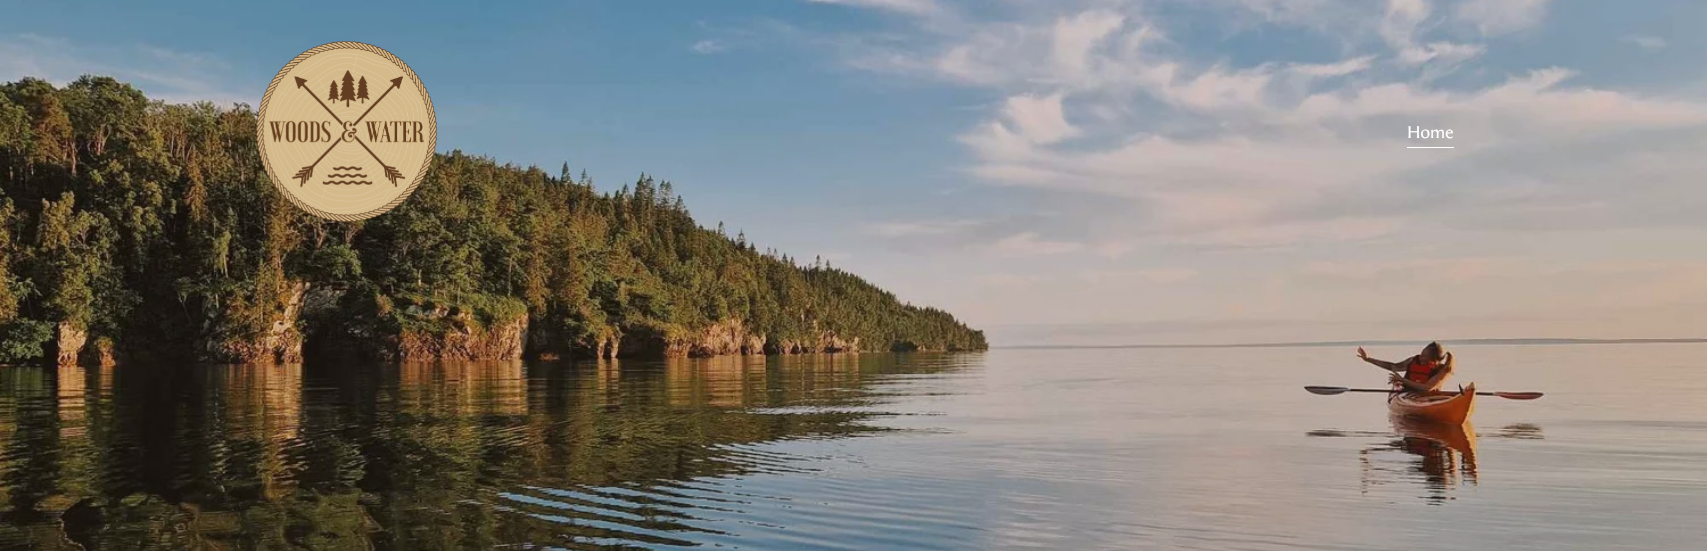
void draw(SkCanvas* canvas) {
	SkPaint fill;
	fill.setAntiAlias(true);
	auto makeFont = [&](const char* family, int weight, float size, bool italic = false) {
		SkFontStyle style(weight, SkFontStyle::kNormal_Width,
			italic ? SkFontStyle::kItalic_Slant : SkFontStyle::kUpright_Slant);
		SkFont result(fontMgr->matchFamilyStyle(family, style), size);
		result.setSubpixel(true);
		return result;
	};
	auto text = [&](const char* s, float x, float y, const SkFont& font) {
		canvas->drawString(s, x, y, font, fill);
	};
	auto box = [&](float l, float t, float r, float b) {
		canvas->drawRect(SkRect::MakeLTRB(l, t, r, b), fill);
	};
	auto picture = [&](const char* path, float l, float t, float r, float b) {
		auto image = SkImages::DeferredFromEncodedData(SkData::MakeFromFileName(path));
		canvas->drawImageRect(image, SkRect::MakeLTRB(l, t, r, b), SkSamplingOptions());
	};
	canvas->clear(0xFFFFFFFF);
	picture("image0.png", 0, 0, 1707, 551);
	picture("image1.png", 256, 41, 438, 223);
	fill.setColor(0xFFFFFFFF);
	box(1407, 147, 1454, 148);
	auto font1 = makeFont("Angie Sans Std", 400, 17);
	text("Home", 1407, 138, font1);
}
